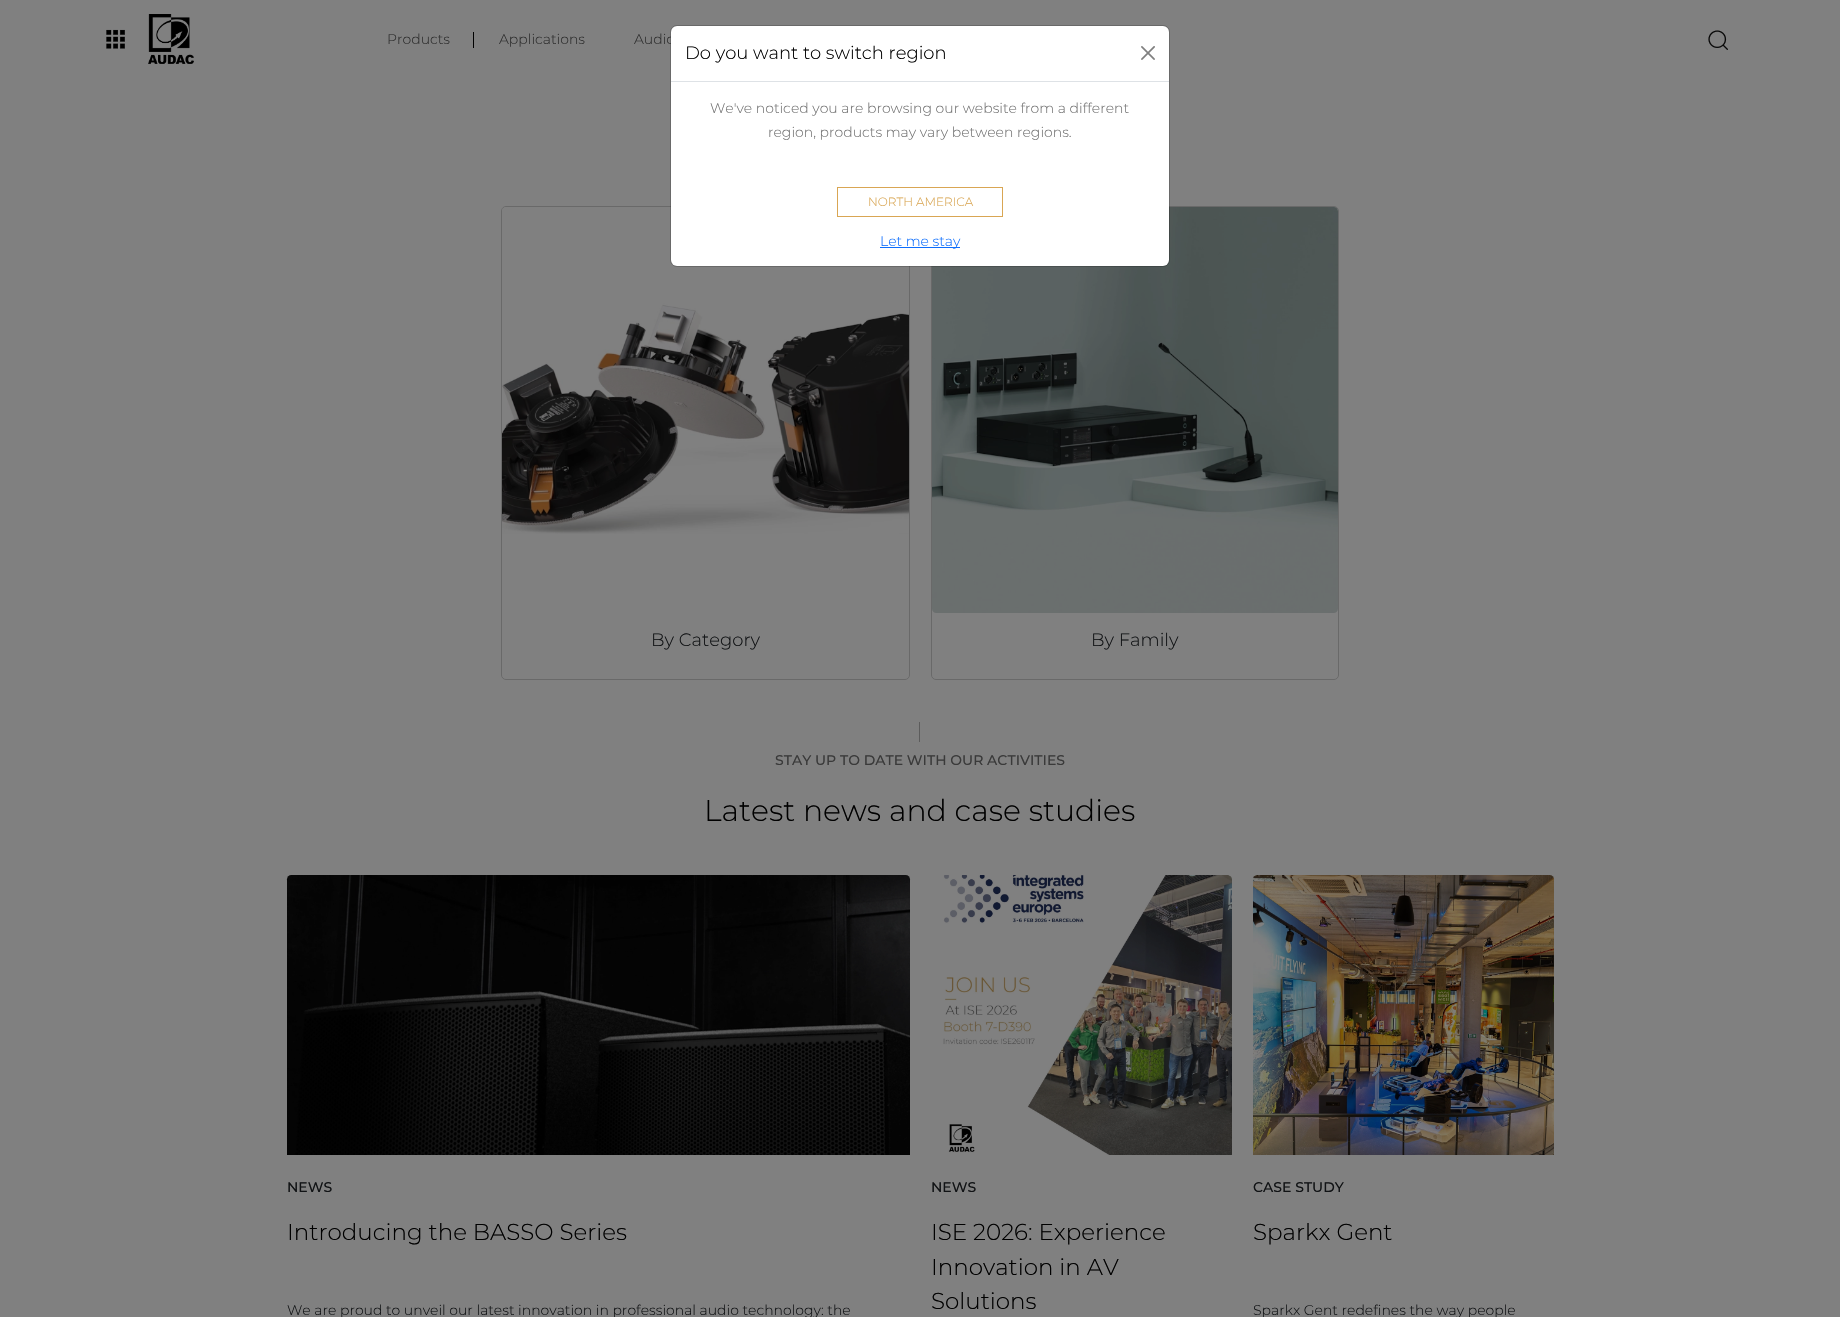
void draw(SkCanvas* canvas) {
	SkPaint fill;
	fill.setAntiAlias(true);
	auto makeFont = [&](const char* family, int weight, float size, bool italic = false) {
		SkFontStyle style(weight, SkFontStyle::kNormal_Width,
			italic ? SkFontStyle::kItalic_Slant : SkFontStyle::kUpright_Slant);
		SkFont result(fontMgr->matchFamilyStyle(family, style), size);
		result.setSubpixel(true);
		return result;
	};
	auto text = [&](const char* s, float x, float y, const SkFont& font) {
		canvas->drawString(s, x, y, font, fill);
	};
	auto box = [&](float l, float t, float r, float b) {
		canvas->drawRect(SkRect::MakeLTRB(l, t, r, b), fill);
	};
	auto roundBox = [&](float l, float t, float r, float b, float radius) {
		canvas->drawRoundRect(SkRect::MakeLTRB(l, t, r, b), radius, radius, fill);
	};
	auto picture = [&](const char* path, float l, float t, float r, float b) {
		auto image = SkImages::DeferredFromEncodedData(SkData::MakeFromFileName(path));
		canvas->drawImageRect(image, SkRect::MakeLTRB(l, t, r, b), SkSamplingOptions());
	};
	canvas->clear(0xFF808080);
	picture("image0.png", 106, 29, 125, 49);
	picture("image1.png", 148, 14, 194, 64);
	fill.setColor(0xFF000000);
	box(473, 32, 474, 48);
	picture("image2.png", 1708, 30, 1728, 50);
	fill.setStyle(SkPaint::kStroke_Style);
	fill.setStrokeWidth(1);
	fill.setColor(0xFF696969);
	canvas->drawRoundRect(SkRect::MakeLTRB(501.5f, 206.5f, 909.5f, 679.5f), 4.5f, 4.5f, fill);
	picture("image4.png", 502, 207, 909, 534);
	canvas->drawRoundRect(SkRect::MakeLTRB(931.5f, 206.5f, 1338.5f, 679.5f), 4.5f, 4.5f, fill);
	picture("image5.png", 932, 207, 1338, 613);
	fill.setStyle(SkPaint::kFill_Style);
	fill.setColor(0xFF5C5C5C);
	box(919, 722, 920, 742);
	picture("image6.png", 286, 875, 911, 1155);
	picture("image7.png", 943, 875, 1232, 1155);
	picture("image8.png", 1253, 875, 1555, 1155);
	auto font1 = makeFont("Montserrat", 300, 14);
	fill.setColor(0xFF2D2D2D);
	text("Products", 387, 44, font1);
	text("Applications", 499, 44, font1);
	text("Audio", 634, 44, font1);
	fill.setColor(0xFFFFFFFF);
	roundBox(671, 26, 1169, 266, 6);
	fill.setStyle(SkPaint::kStroke_Style);
	fill.setColor(0x2E000000);
	canvas->drawRoundRect(SkRect::MakeLTRB(670.5f, 25.5f, 1169.5f, 266.5f), 6.5f, 6.5f, fill);
	fill.setStyle(SkPaint::kFill_Style);
	fill.setColor(0xFFDEE2E6);
	box(671, 81, 1169, 82);
	auto font2 = makeFont("Montserrat", 300, 18);
	fill.setColor(0xFF000000);
	text("Do you want to switch region", 685, 59, font2);
	picture("image3.png", 1141, 46, 1155, 60);
	fill.setColor(0xFF737373);
	text("We've noticed you are browsing our website from a different", 710, 113, font1);
	text("region, products may vary between regions.", 768, 137, font1);
	fill.setStyle(SkPaint::kStroke_Style);
	fill.setColor(0xFFD9A653);
	canvas->drawRect(SkRect::MakeLTRB(837.5f, 187.5f, 1002.5f, 216.5f), fill);
	auto font3 = makeFont("Montserrat", 300, 12);
	fill.setStyle(SkPaint::kFill_Style);
	text("NORTH AMERICA", 868, 206, font3);
	fill.setColor(0xFF0D6EFD);
	box(880, 247, 960, 248);
	text("Let me stay", 880, 246, font1);
	fill.setColor(0xFF111315);
	text("By Category", 651, 646, font2);
	text("By Family", 1091, 646, font2);
	auto font4 = makeFont("Montserrat", 500, 14);
	fill.setColor(0xFF3A3A3A);
	text("STAY UP TO DATE WITH OUR ACTIVITIES", 775, 765, font4);
	auto font5 = makeFont("Montserrat", 300, 30);
	fill.setColor(0xFF000000);
	text("Latest news and case studies", 704, 821, font5);
	fill.setColor(0xFF111315);
	text("NEWS", 287, 1192, font4);
	auto font6 = makeFont("Montserrat", 300, 23);
	fill.setColor(0xFF000000);
	text("Introducing the BASSO Series", 287, 1240, font6);
	fill.setColor(0xFF111315);
	text("We are proud to unveil our latest innovation in professional audio technology: the", 287, 1315, font1);
	text("NEWS", 931, 1192, font4);
	fill.setColor(0xFF000000);
	text("ISE 2026: Experience", 931, 1240, font6);
	text("Innovation in AV", 931, 1275, font6);
	text("Solutions", 931, 1309, font6);
	fill.setColor(0xFF111315);
	text("CASE STUDY", 1253, 1192, font4);
	fill.setColor(0xFF000000);
	text("Sparkx Gent", 1253, 1240, font6);
	fill.setColor(0xFF111315);
	text("Sparkx Gent redefines the way people", 1253, 1315, font1);
}
